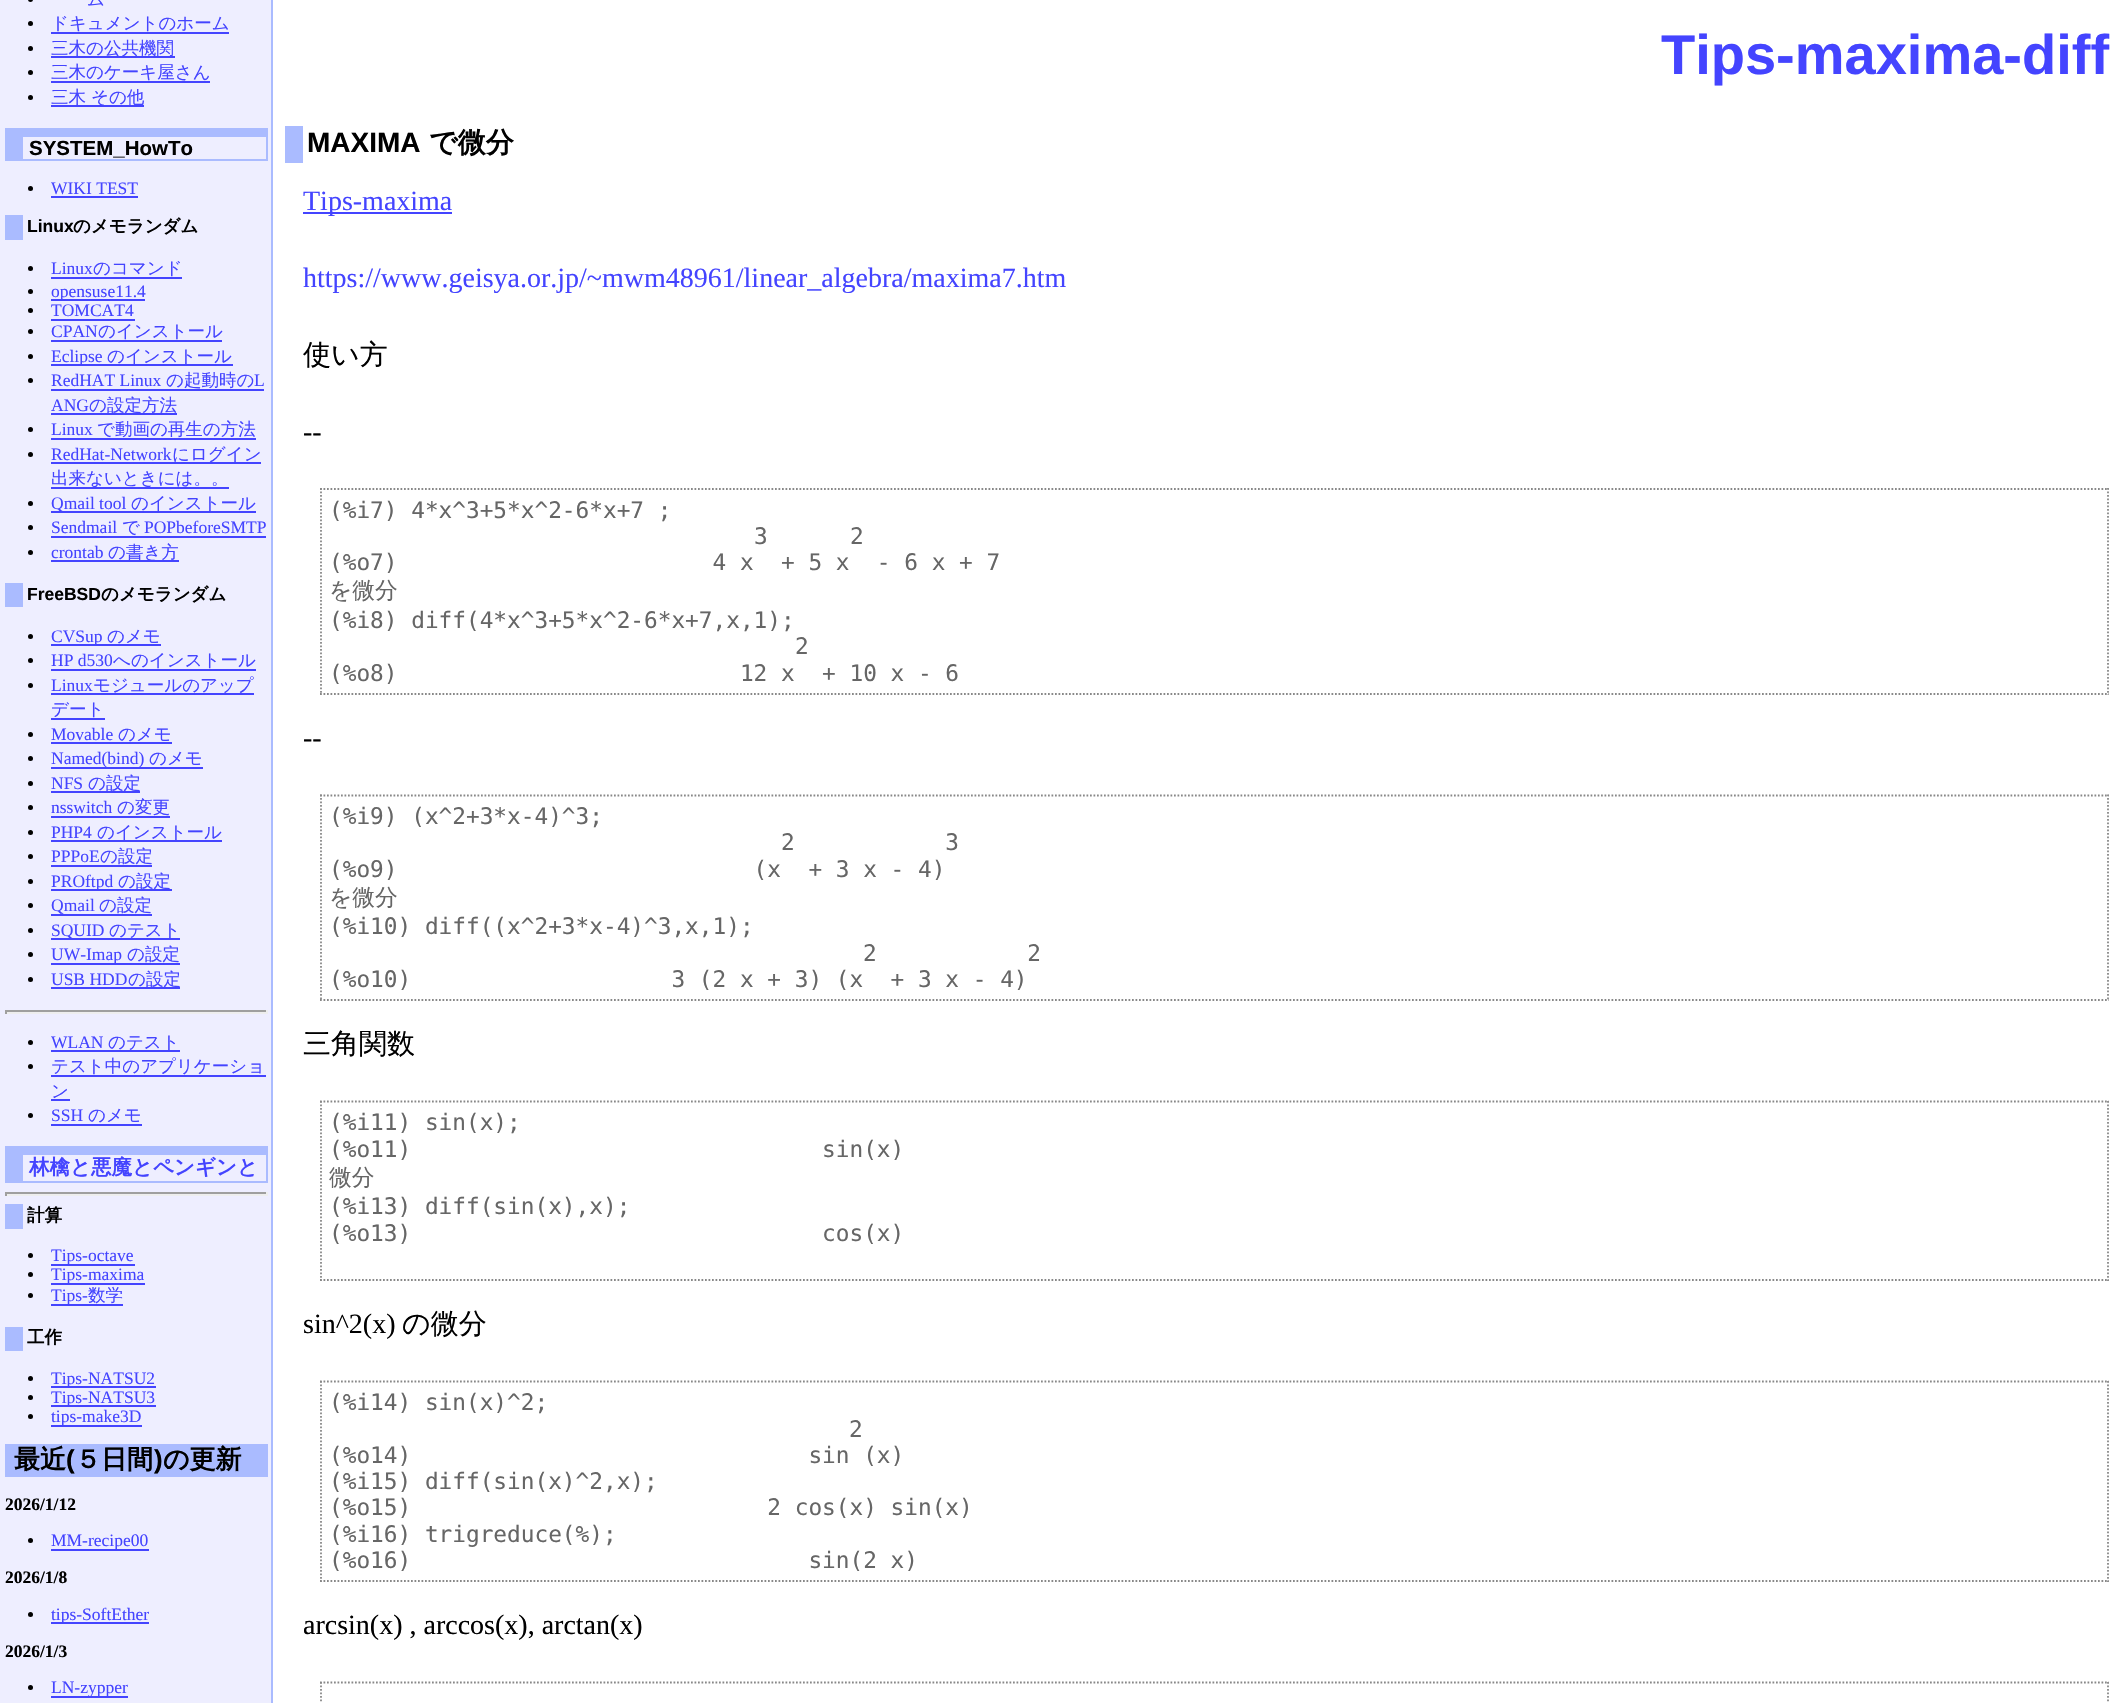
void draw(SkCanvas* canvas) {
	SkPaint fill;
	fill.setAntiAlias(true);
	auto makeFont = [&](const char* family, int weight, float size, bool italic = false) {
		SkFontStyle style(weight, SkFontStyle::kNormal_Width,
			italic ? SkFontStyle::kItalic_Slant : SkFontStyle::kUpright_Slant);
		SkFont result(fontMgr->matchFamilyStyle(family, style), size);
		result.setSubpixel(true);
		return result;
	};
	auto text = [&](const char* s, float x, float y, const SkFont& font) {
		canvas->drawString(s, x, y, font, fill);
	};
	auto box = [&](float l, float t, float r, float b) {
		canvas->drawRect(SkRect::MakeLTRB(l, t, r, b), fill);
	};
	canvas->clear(0xFFFFFFFF);
	fill.setColor(0xFFEEEEFF);
	box(0, 0, 271, 1703);
	fill.setColor(0xFFAABBFF);
	box(271, 0, 273, 1703);
	fill.setColor(0xFF000000);
	canvas->drawCircle(30.5f, -0.5f, 2.5f, fill);
	canvas->drawCircle(30.5f, 23.5f, 2.5f, fill);
	fill.setColor(0xFF4444FF);
	box(51, 32, 229, 34);
	fill.setColor(0xFF000000);
	canvas->drawCircle(30.5f, 48.5f, 2.5f, fill);
	fill.setColor(0xFF4444FF);
	box(51, 56, 175, 58);
	fill.setColor(0xFF000000);
	canvas->drawCircle(30.5f, 72.5f, 2.5f, fill);
	fill.setColor(0xFF4444FF);
	box(51, 81, 210, 83);
	fill.setColor(0xFF000000);
	canvas->drawCircle(30.5f, 97.5f, 2.5f, fill);
	fill.setColor(0xFF4444FF);
	box(51, 105, 144, 107);
	fill.setColor(0xFFAABBFF);
	box(23, 128, 266, 137);
	box(266, 128, 268, 161);
	box(23, 159, 268, 161);
	box(5, 128, 23, 161);
	fill.setColor(0xFF000000);
	canvas->drawCircle(30.5f, 188.5f, 2.5f, fill);
	fill.setColor(0xFF4444FF);
	box(51, 196, 138, 198);
	fill.setColor(0xFFAABBFF);
	box(5, 215, 23, 240);
	fill.setColor(0xFF000000);
	canvas->drawCircle(30.5f, 268.5f, 2.5f, fill);
	fill.setColor(0xFF4444FF);
	box(51, 277, 182, 279);
	fill.setColor(0xFF000000);
	canvas->drawCircle(30.5f, 291.5f, 2.5f, fill);
	fill.setColor(0xFF4444FF);
	box(51, 299, 145, 301);
	fill.setColor(0xFF000000);
	canvas->drawCircle(30.5f, 310.5f, 2.5f, fill);
	fill.setColor(0xFF4444FF);
	box(51, 319, 135, 321);
	fill.setColor(0xFF000000);
	canvas->drawCircle(30.5f, 331.5f, 2.5f, fill);
	fill.setColor(0xFF4444FF);
	box(51, 340, 222, 342);
	fill.setColor(0xFF000000);
	canvas->drawCircle(30.5f, 356.5f, 2.5f, fill);
	fill.setColor(0xFF4444FF);
	box(51, 364, 233, 366);
	fill.setColor(0xFF000000);
	canvas->drawCircle(30.5f, 380.5f, 2.5f, fill);
	fill.setColor(0xFF4444FF);
	box(51, 389, 264, 391);
	box(51, 413, 177, 415);
	fill.setColor(0xFF000000);
	canvas->drawCircle(30.5f, 429.5f, 2.5f, fill);
	fill.setColor(0xFF4444FF);
	box(51, 438, 256, 440);
	fill.setColor(0xFF000000);
	canvas->drawCircle(30.5f, 454.5f, 2.5f, fill);
	fill.setColor(0xFF4444FF);
	box(51, 462, 261, 464);
	box(51, 487, 229, 489);
	fill.setColor(0xFF000000);
	canvas->drawCircle(30.5f, 503.5f, 2.5f, fill);
	fill.setColor(0xFF4444FF);
	box(51, 511, 256, 513);
	fill.setColor(0xFF000000);
	canvas->drawCircle(30.5f, 527.5f, 2.5f, fill);
	fill.setColor(0xFF4444FF);
	box(51, 536, 266, 538);
	fill.setColor(0xFF000000);
	canvas->drawCircle(30.5f, 552.5f, 2.5f, fill);
	fill.setColor(0xFF4444FF);
	box(51, 560, 179, 562);
	fill.setColor(0xFFAABBFF);
	box(5, 583, 23, 607);
	fill.setColor(0xFF000000);
	canvas->drawCircle(30.5f, 636.5f, 2.5f, fill);
	fill.setColor(0xFF4444FF);
	box(51, 644, 161, 646);
	fill.setColor(0xFF000000);
	canvas->drawCircle(30.5f, 660.5f, 2.5f, fill);
	fill.setColor(0xFF4444FF);
	box(51, 669, 256, 671);
	fill.setColor(0xFF000000);
	canvas->drawCircle(30.5f, 685.5f, 2.5f, fill);
	fill.setColor(0xFF4444FF);
	box(51, 693, 254, 695);
	box(51, 718, 105, 720);
	fill.setColor(0xFF000000);
	canvas->drawCircle(30.5f, 734.5f, 2.5f, fill);
	fill.setColor(0xFF4444FF);
	box(51, 742, 172, 744);
	fill.setColor(0xFF000000);
	canvas->drawCircle(30.5f, 758.5f, 2.5f, fill);
	fill.setColor(0xFF4444FF);
	box(51, 767, 203, 769);
	fill.setColor(0xFF000000);
	canvas->drawCircle(30.5f, 783.5f, 2.5f, fill);
	fill.setColor(0xFF4444FF);
	box(51, 791, 140, 793);
	fill.setColor(0xFF000000);
	canvas->drawCircle(30.5f, 807.5f, 2.5f, fill);
	fill.setColor(0xFF4444FF);
	box(51, 816, 170, 818);
	fill.setColor(0xFF000000);
	canvas->drawCircle(30.5f, 832.5f, 2.5f, fill);
	fill.setColor(0xFF4444FF);
	box(51, 840, 222, 842);
	fill.setColor(0xFF000000);
	canvas->drawCircle(30.5f, 856.5f, 2.5f, fill);
	fill.setColor(0xFF4444FF);
	box(51, 865, 152, 867);
	fill.setColor(0xFF000000);
	canvas->drawCircle(30.5f, 881.5f, 2.5f, fill);
	fill.setColor(0xFF4444FF);
	box(51, 889, 172, 891);
	fill.setColor(0xFF000000);
	canvas->drawCircle(30.5f, 905.5f, 2.5f, fill);
	fill.setColor(0xFF4444FF);
	box(51, 914, 152, 916);
	fill.setColor(0xFF000000);
	canvas->drawCircle(30.5f, 930.5f, 2.5f, fill);
	fill.setColor(0xFF4444FF);
	box(51, 938, 180, 940);
	fill.setColor(0xFF000000);
	canvas->drawCircle(30.5f, 954.5f, 2.5f, fill);
	fill.setColor(0xFF4444FF);
	box(51, 963, 180, 965);
	fill.setColor(0xFF000000);
	canvas->drawCircle(30.5f, 979.5f, 2.5f, fill);
	fill.setColor(0xFF4444FF);
	box(51, 987, 180, 989);
	fill.setColor(0xFF9F9F9F);
	box(5, 1010, 268, 1012);
	fill.setColor(0xFFEEEEEE);
	box(266, 1010, 268, 1014);
	box(5, 1012, 268, 1014);
	fill.setColor(0xFF9F9F9F);
	box(5, 1010, 7, 1014);
	fill.setColor(0xFF000000);
	canvas->drawCircle(30.5f, 1042.5f, 2.5f, fill);
	fill.setColor(0xFF4444FF);
	box(51, 1050, 180, 1052);
	fill.setColor(0xFF000000);
	canvas->drawCircle(30.5f, 1066.5f, 2.5f, fill);
	fill.setColor(0xFF4444FF);
	box(51, 1075, 266, 1077);
	box(51, 1099, 70, 1101);
	fill.setColor(0xFF000000);
	canvas->drawCircle(30.5f, 1115.5f, 2.5f, fill);
	fill.setColor(0xFF4444FF);
	box(51, 1124, 142, 1126);
	fill.setColor(0xFFAABBFF);
	box(23, 1146, 266, 1155);
	box(266, 1146, 268, 1183);
	box(23, 1181, 268, 1183);
	box(5, 1146, 23, 1183);
	fill.setColor(0xFF9F9F9F);
	box(5, 1192, 268, 1194);
	fill.setColor(0xFFEEEEEE);
	box(266, 1192, 268, 1196);
	box(5, 1194, 268, 1196);
	fill.setColor(0xFF9F9F9F);
	box(5, 1192, 7, 1196);
	fill.setColor(0xFFAABBFF);
	box(5, 1204, 23, 1229);
	fill.setColor(0xFF000000);
	canvas->drawCircle(30.5f, 1255.5f, 2.5f, fill);
	fill.setColor(0xFF4444FF);
	box(51, 1264, 135, 1266);
	fill.setColor(0xFF000000);
	canvas->drawCircle(30.5f, 1274.5f, 2.5f, fill);
	fill.setColor(0xFF4444FF);
	box(51, 1283, 145, 1285);
	fill.setColor(0xFF000000);
	canvas->drawCircle(30.5f, 1295.5f, 2.5f, fill);
	fill.setColor(0xFF4444FF);
	box(51, 1304, 123, 1306);
	fill.setColor(0xFFAABBFF);
	box(5, 1327, 23, 1351);
	fill.setColor(0xFF000000);
	canvas->drawCircle(30.5f, 1378.5f, 2.5f, fill);
	fill.setColor(0xFF4444FF);
	box(51, 1386, 156, 1388);
	fill.setColor(0xFF000000);
	canvas->drawCircle(30.5f, 1397.5f, 2.5f, fill);
	fill.setColor(0xFF4444FF);
	box(51, 1405, 156, 1407);
	fill.setColor(0xFF000000);
	canvas->drawCircle(30.5f, 1416.5f, 2.5f, fill);
	fill.setColor(0xFF4444FF);
	box(51, 1425, 142, 1427);
	fill.setColor(0xFFAABBFF);
	box(5, 1444, 268, 1477);
	fill.setColor(0xFF000000);
	canvas->drawCircle(30.5f, 1540.5f, 2.5f, fill);
	fill.setColor(0xFF4444FF);
	box(51, 1549, 149, 1551);
	fill.setColor(0xFF000000);
	canvas->drawCircle(30.5f, 1614.5f, 2.5f, fill);
	fill.setColor(0xFF4444FF);
	box(51, 1622, 149, 1624);
	fill.setColor(0xFF000000);
	canvas->drawCircle(30.5f, 1687.5f, 2.5f, fill);
	fill.setColor(0xFF4444FF);
	box(51, 1696, 128, 1698);
	fill.setColor(0xFFAABBFF);
	box(285, 126, 303, 163);
	fill.setColor(0xFF4444FF);
	box(303, 212, 452, 214);
	fill.setStyle(SkPaint::kStroke_Style);
	fill.setStrokeWidth(1.8f);
	fill.setColor(0xFF888888);
	fill.setPathEffect(SkDashPathEffect::Make({{1.75f, 1.75f}}, 0));
	canvas->drawPath(SkPathBuilder().moveTo(320, 489).lineTo(2109, 489).detach(), fill);
	fill.setPathEffect(nullptr);
	fill.setPathEffect(SkDashPathEffect::Make({{1.75f, 1.75f}}, 0));
	canvas->drawPath(SkPathBuilder().moveTo(2108, 488).lineTo(2108, 695).detach(), fill);
	fill.setPathEffect(nullptr);
	fill.setPathEffect(SkDashPathEffect::Make({{1.75f, 1.75f}}, 0));
	canvas->drawPath(SkPathBuilder().moveTo(320, 694).lineTo(2109, 694).detach(), fill);
	fill.setPathEffect(nullptr);
	fill.setPathEffect(SkDashPathEffect::Make({{1.75f, 1.75f}}, 0));
	canvas->drawPath(SkPathBuilder().moveTo(321, 488).lineTo(321, 695).detach(), fill);
	fill.setPathEffect(nullptr);
	fill.setPathEffect(SkDashPathEffect::Make({{1.75f, 1.75f}}, 0));
	canvas->drawPath(SkPathBuilder().moveTo(320, 795.5f).lineTo(2109, 795.5f).detach(), fill);
	fill.setPathEffect(nullptr);
	fill.setPathEffect(SkDashPathEffect::Make({{1.75f, 1.75f}}, 0));
	canvas->drawPath(SkPathBuilder().moveTo(2108, 794.5f).lineTo(2108, 1001).detach(), fill);
	fill.setPathEffect(nullptr);
	fill.setPathEffect(SkDashPathEffect::Make({{1.75f, 1.75f}}, 0));
	canvas->drawPath(SkPathBuilder().moveTo(320, 1000).lineTo(2109, 1000).detach(), fill);
	fill.setPathEffect(nullptr);
	fill.setPathEffect(SkDashPathEffect::Make({{1.75f, 1.75f}}, 0));
	canvas->drawPath(SkPathBuilder().moveTo(321, 794.5f).lineTo(321, 1001).detach(), fill);
	fill.setPathEffect(nullptr);
	fill.setPathEffect(SkDashPathEffect::Make({{1.75f, 1.75f}}, 0));
	canvas->drawPath(SkPathBuilder().moveTo(320, 1101.5f).lineTo(2109, 1101.5f).detach(), fill);
	fill.setPathEffect(nullptr);
	fill.setPathEffect(SkDashPathEffect::Make({{1.75f, 1.75f}}, 0));
	canvas->drawPath(SkPathBuilder().moveTo(2108, 1101).lineTo(2108, 1281).detach(), fill);
	fill.setPathEffect(nullptr);
	fill.setPathEffect(SkDashPathEffect::Make({{1.75f, 1.75f}}, 0));
	canvas->drawPath(SkPathBuilder().moveTo(320, 1280).lineTo(2109, 1280).detach(), fill);
	fill.setPathEffect(nullptr);
	fill.setPathEffect(SkDashPathEffect::Make({{1.75f, 1.75f}}, 0));
	canvas->drawPath(SkPathBuilder().moveTo(321, 1101).lineTo(321, 1281).detach(), fill);
	fill.setPathEffect(nullptr);
	fill.setPathEffect(SkDashPathEffect::Make({{1.75f, 1.75f}}, 0));
	canvas->drawPath(SkPathBuilder().moveTo(320, 1381.5f).lineTo(2109, 1381.5f).detach(), fill);
	fill.setPathEffect(nullptr);
	fill.setPathEffect(SkDashPathEffect::Make({{1.75f, 1.75f}}, 0));
	canvas->drawPath(SkPathBuilder().moveTo(2108, 1381).lineTo(2108, 1582).detach(), fill);
	fill.setPathEffect(nullptr);
	fill.setPathEffect(SkDashPathEffect::Make({{1.75f, 1.75f}}, 0));
	canvas->drawPath(SkPathBuilder().moveTo(320, 1581).lineTo(2109, 1581).detach(), fill);
	fill.setPathEffect(nullptr);
	fill.setPathEffect(SkDashPathEffect::Make({{1.75f, 1.75f}}, 0));
	canvas->drawPath(SkPathBuilder().moveTo(321, 1381).lineTo(321, 1582).detach(), fill);
	fill.setPathEffect(nullptr);
	fill.setPathEffect(SkDashPathEffect::Make({{1.75f, 1.75f}}, 0));
	canvas->drawPath(SkPathBuilder().moveTo(320, 1682.5f).lineTo(2109, 1682.5f).detach(), fill);
	fill.setPathEffect(nullptr);
	fill.setPathEffect(SkDashPathEffect::Make({{1.75f, 1.75f}}, 0));
	canvas->drawPath(SkPathBuilder().moveTo(2108, 1682).lineTo(2108, 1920).detach(), fill);
	fill.setPathEffect(nullptr);
	fill.setPathEffect(SkDashPathEffect::Make({{1.75f, 1.75f}}, 0));
	canvas->drawPath(SkPathBuilder().moveTo(321, 1682).lineTo(321, 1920).detach(), fill);
	fill.setPathEffect(nullptr);
	auto font1 = makeFont("WenQuanYi Zen Hei", 500, 17.5f);
	fill.setStyle(SkPaint::kFill_Style);
	fill.setColor(0xFF4444FF);
	text("ム", 87, 5, font1);
	text("ドキュメントのホーム", 51, 29, font1);
	text("三木の公共機関", 51, 54, font1);
	text("三木のケーキ屋さん", 51, 78, font1);
	text("三木", 51, 103, font1);
	text("その他", 91, 103, font1);
	auto font2 = makeFont("Liberation Sans", 700, 20.5f);
	fill.setColor(0xFF000000);
	text("SYSTEM_HowTo", 29, 155, font2);
	auto font3 = makeFont("Liberation Serif", 400, 17.5f);
	fill.setColor(0xFF4444FF);
	text("WIKI TEST", 51, 194, font3);
	auto font4 = makeFont("Liberation Sans", 700, 17.5f);
	fill.setColor(0xFF000000);
	text("Linux", 27, 232, font4);
	auto font5 = makeFont("WenQuanYi Zen Hei", 700, 17.5f);
	text("のメモランダム", 73, 232, font5);
	fill.setColor(0xFF4444FF);
	text("Linux", 51, 274, font3);
	text("のコマンド", 93, 274, font1);
	text("opensuse11.4", 51, 297, font3);
	text("TOMCAT4", 51, 316, font3);
	text("CPAN", 51, 337, font3);
	text("のインストール", 98, 337, font1);
	text("Eclipse", 51, 362, font3);
	text("のインストール", 107, 362, font1);
	text("RedHAT Linux", 51, 386, font3);
	text("の起動時の", 166, 386, font1);
	text("L", 254, 386, font3);
	text("ANG", 51, 411, font3);
	text("の設定方法", 89, 411, font1);
	text("Linux", 51, 435, font3);
	text("で動画の再生の方法", 97, 435, font1);
	text("RedHat-Network", 51, 460, font3);
	text("にログイン", 172, 460, font1);
	text("出来ないときには。。", 51, 484, font1);
	text("Qmail tool", 51, 509, font3);
	text("のインストール", 131, 509, font1);
	text("Sendmail", 51, 533, font3);
	text("で", 122, 533, font1);
	text("POPbeforeSMTP", 144, 533, font3);
	text("crontab", 51, 558, font3);
	text("の書き方", 108, 558, font1);
	fill.setColor(0xFF000000);
	text("FreeBSD", 27, 600, font4);
	text("のメモランダム", 101, 600, font5);
	fill.setColor(0xFF4444FF);
	text("CVSup", 51, 642, font3);
	text("のメモ", 107, 642, font1);
	text("HP d530", 51, 666, font3);
	text("へのインストール", 113, 666, font1);
	text("Linux", 51, 691, font3);
	text("モジュールのアップ", 93, 691, font1);
	text("デート", 51, 715, font1);
	text("Movable", 51, 740, font3);
	text("のメモ", 118, 740, font1);
	text("Named(bind)", 51, 764, font3);
	text("のメモ", 149, 764, font1);
	text("NFS", 51, 789, font3);
	text("の設定", 88, 789, font1);
	text("nsswitch", 51, 813, font3);
	text("の変更", 117, 813, font1);
	text("PHP4", 51, 838, font3);
	text("のインストール", 97, 838, font1);
	text("PPPoE", 51, 862, font3);
	text("の設定", 100, 862, font1);
	text("PROftpd", 51, 887, font3);
	text("の設定", 118, 887, font1);
	text("Qmail", 51, 911, font3);
	text("の設定", 99, 911, font1);
	text("SQUID", 51, 936, font3);
	text("のテスト", 109, 936, font1);
	text("UW-Imap", 51, 960, font3);
	text("の設定", 127, 960, font1);
	text("USB HDD", 51, 985, font3);
	text("の設定", 128, 985, font1);
	text("WLAN", 51, 1048, font3);
	text("のテスト", 108, 1048, font1);
	text("テスト中のアプリケーショ", 51, 1072, font1);
	text("ン", 51, 1097, font1);
	text("SSH", 51, 1121, font3);
	text("のメモ", 88, 1121, font1);
	auto font6 = makeFont("WenQuanYi Zen Hei", 700, 20.5f);
	text("林檎と悪魔とペンギンと", 29, 1174, font6);
	fill.setColor(0xFF000000);
	text("計算", 27, 1221, font5);
	fill.setColor(0xFF4444FF);
	text("Tips-octave", 51, 1261, font3);
	text("Tips-maxima", 51, 1280, font3);
	text("Tips-", 51, 1301, font3);
	text("数学", 88, 1301, font1);
	fill.setColor(0xFF000000);
	text("工作", 27, 1343, font5);
	fill.setColor(0xFF4444FF);
	text("Tips-NATSU2", 51, 1384, font3);
	text("Tips-NATSU3", 51, 1403, font3);
	text("tips-make3D", 51, 1422, font3);
	auto font7 = makeFont("WenQuanYi Zen Hei", 700, 26);
	fill.setColor(0xFF000000);
	text("最近", 14, 1468, font7);
	auto font8 = makeFont("Liberation Sans", 700, 26);
	text("(", 66, 1468, font8);
	text("５日間", 75, 1468, font7);
	text(")", 154, 1468, font8);
	text("の更新", 163, 1468, font7);
	auto font9 = makeFont("Liberation Serif", 700, 17.5f);
	text("2026/1/12", 5, 1510, font9);
	fill.setColor(0xFF4444FF);
	text("MM-recipe00", 51, 1546, font3);
	fill.setColor(0xFF000000);
	text("2026/1/8", 5, 1583, font9);
	fill.setColor(0xFF4444FF);
	text("tips-SoftEther", 51, 1620, font3);
	fill.setColor(0xFF000000);
	text("2026/1/3", 5, 1657, font9);
	fill.setColor(0xFF4444FF);
	text("LN-zypper", 51, 1693, font3);
	auto font10 = makeFont("Liberation Sans", 700, 56);
	text("Tips-maxima-diff", 1661, 74, font10);
	auto font11 = makeFont("Liberation Sans", 700, 28);
	fill.setColor(0xFF000000);
	text("MAXIMA", 307, 152, font11);
	auto font12 = makeFont("WenQuanYi Zen Hei", 700, 28);
	text("で微分", 429, 152, font12);
	auto font13 = makeFont("Liberation Serif", 400, 28);
	fill.setColor(0xFF4444FF);
	text("Tips-maxima", 303, 210, font13);
	text("https://www.geisya.or.jp/~mwm48961/linear_algebra/maxima7.htm", 303, 287, font13);
	auto font14 = makeFont("WenQuanYi Zen Hei", 500, 28);
	fill.setColor(0xFF000000);
	text("使い方", 303, 364, font14);
	text("--", 303, 441, font13);
	auto font15 = makeFont("DejaVu Sans Mono", 400, 22.75f);
	fill.setColor(0xFF666666);
	text("(%i7) 4*x^3+5*x^2-6*x+7 ;", 329, 518, font15);
	text("3      2", 754, 544, font15);
	text("(%o7)                       4 x  + 5 x  - 6 x + 7", 329, 570, font15);
	auto font16 = makeFont("WenQuanYi Zen Hei", 500, 22.75f);
	text("を微分", 329, 598, font16);
	text("(%i8) diff(4*x^3+5*x^2-6*x+7,x,1);", 329, 628, font15);
	text("2", 795, 654, font15);
	text("(%o8)                         12 x  + 10 x - 6", 329, 681, font15);
	fill.setColor(0xFF000000);
	text("--", 303, 747, font13);
	fill.setColor(0xFF666666);
	text("(%i9) (x^2+3*x-4)^3;", 329, 824, font15);
	text("2           3", 781, 850, font15);
	text("(%o9)                          (x  + 3 x - 4)", 329, 877, font15);
	text("を微分", 329, 905, font16);
	text("(%i10) diff((x^2+3*x-4)^3,x,1);", 329, 934, font15);
	text("2           2", 863, 961, font15);
	text("(%o10)                   3 (2 x + 3) (x  + 3 x - 4)", 329, 987, font15);
	fill.setColor(0xFF000000);
	text("三角関数", 303, 1053, font14);
	fill.setColor(0xFF666666);
	text("(%i11) sin(x);", 329, 1130, font15);
	text("(%o11)                              sin(x)", 329, 1157, font15);
	text("微分", 329, 1185, font16);
	text("(%i13) diff(sin(x),x);", 329, 1214, font15);
	text("(%o13)                              cos(x)", 329, 1241, font15);
	fill.setColor(0xFF000000);
	text("sin^2(x)", 303, 1333, font13);
	text("の微分", 402, 1333, font14);
	fill.setColor(0xFF666666);
	text("(%i14) sin(x)^2;", 329, 1410, font15);
	text("2", 849, 1437, font15);
	text("(%o14)                             sin (x)", 329, 1463, font15);
	text("(%i15) diff(sin(x)^2,x);", 329, 1489, font15);
	text("(%o15)                          2 cos(x) sin(x)", 329, 1515, font15);
	text("(%i16) trigreduce(%);", 329, 1542, font15);
	text("(%o16)                             sin(2 x)", 329, 1568, font15);
	fill.setColor(0xFF000000);
	text("arcsin(x) , arccos(x), arctan(x)", 303, 1634, font13);
}
